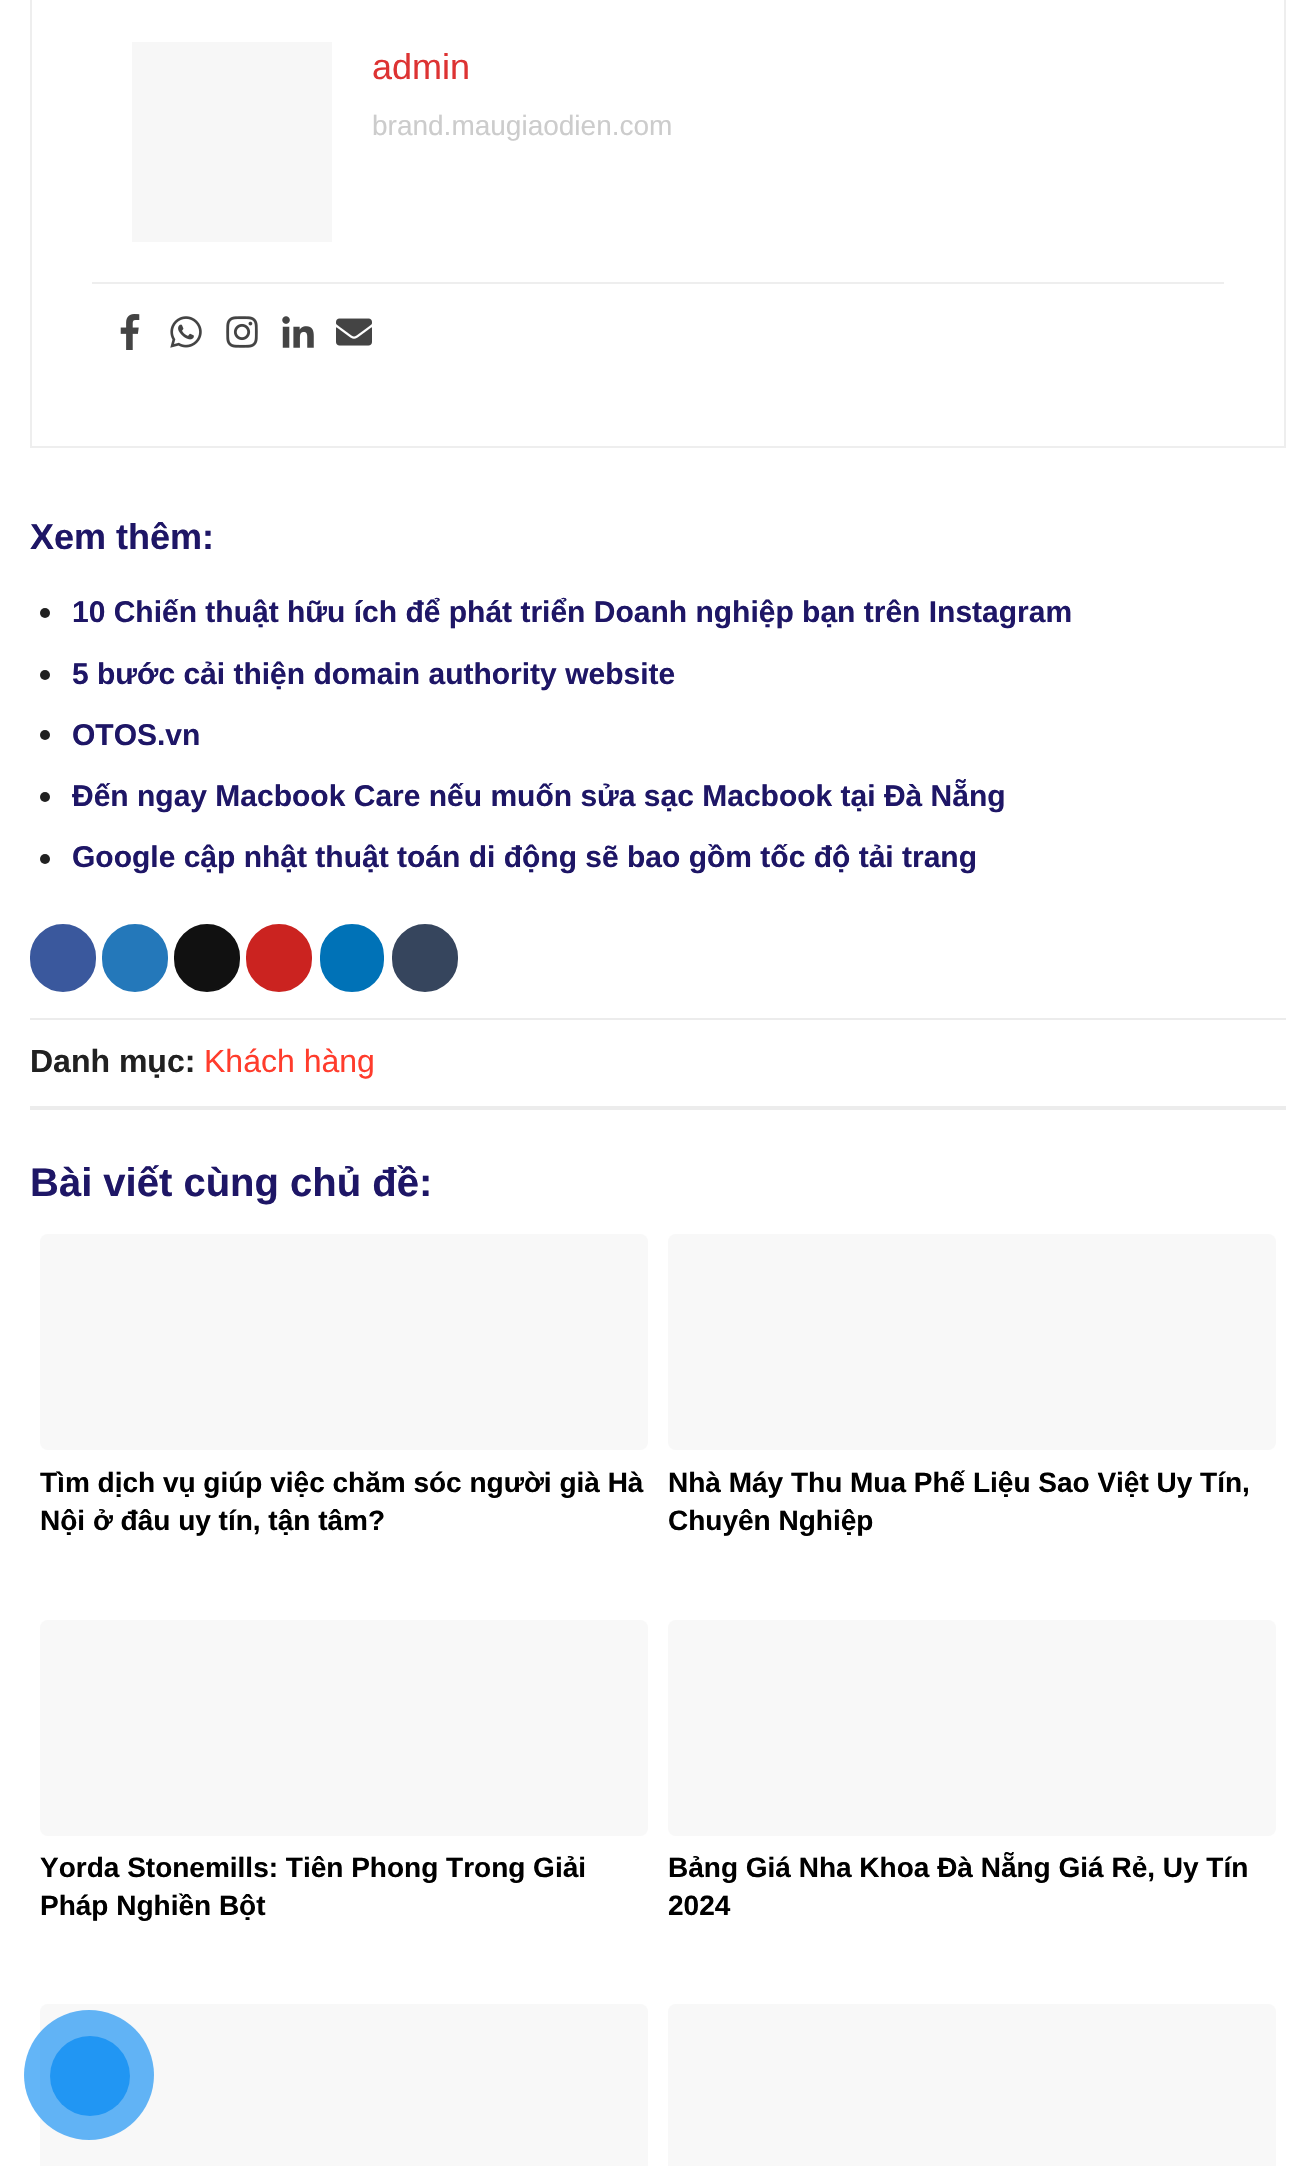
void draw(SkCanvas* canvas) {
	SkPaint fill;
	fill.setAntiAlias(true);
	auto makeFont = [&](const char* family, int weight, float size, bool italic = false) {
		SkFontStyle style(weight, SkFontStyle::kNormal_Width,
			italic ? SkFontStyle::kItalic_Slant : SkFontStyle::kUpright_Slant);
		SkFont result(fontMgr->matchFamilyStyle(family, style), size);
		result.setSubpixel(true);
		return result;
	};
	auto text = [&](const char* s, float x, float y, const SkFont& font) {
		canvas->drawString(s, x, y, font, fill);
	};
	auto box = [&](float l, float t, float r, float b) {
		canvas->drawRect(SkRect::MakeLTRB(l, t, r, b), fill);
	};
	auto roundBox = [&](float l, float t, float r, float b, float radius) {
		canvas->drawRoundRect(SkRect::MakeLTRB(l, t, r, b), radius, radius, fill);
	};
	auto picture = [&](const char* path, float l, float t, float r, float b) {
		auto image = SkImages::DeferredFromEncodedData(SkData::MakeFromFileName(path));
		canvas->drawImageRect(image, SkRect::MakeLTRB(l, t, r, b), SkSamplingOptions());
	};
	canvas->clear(0xFFFFFFFF);
	fill.setStyle(SkPaint::kStroke_Style);
	fill.setStrokeWidth(2);
	fill.setColor(0xFFEEEEEE);
	canvas->drawRect(SkRect::MakeLTRB(31, -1, 1285, 447), fill);
	fill.setStyle(SkPaint::kFill_Style);
	fill.setColor(0xFFF7F7F7);
	box(132, 42, 332, 242);
	fill.setColor(0xFFEEEEEE);
	box(92, 282, 1224, 284);
	picture("image0.png", 120, 314, 140, 350);
	picture("image1.png", 170, 316, 202, 348);
	picture("image2.png", 226, 316, 258, 348);
	picture("image3.png", 282, 316, 314, 348);
	picture("image4.png", 336, 318, 372, 346);
	fill.setColor(0xFF212121);
	canvas->drawCircle(45, 613, 5, fill);
	canvas->drawCircle(45, 675, 5, fill);
	canvas->drawCircle(45, 735, 5, fill);
	canvas->drawCircle(45, 797, 5, fill);
	canvas->drawCircle(45, 859, 5, fill);
	fill.setColor(0xFF3A589D);
	canvas->drawRoundRect(SkRect::MakeLTRB(31, 925, 95, 991), 32, 32, fill);
	fill.setStyle(SkPaint::kStroke_Style);
	canvas->drawRoundRect(SkRect::MakeLTRB(31, 925, 95, 991), 32, 32, fill);
	fill.setStyle(SkPaint::kFill_Style);
	fill.setColor(0xFF2478BA);
	canvas->drawRoundRect(SkRect::MakeLTRB(103, 925, 167, 991), 32, 32, fill);
	fill.setStyle(SkPaint::kStroke_Style);
	canvas->drawRoundRect(SkRect::MakeLTRB(103, 925, 167, 991), 32, 32, fill);
	fill.setStyle(SkPaint::kFill_Style);
	fill.setColor(0xFF111111);
	canvas->drawRoundRect(SkRect::MakeLTRB(175, 925, 239, 991), 32, 32, fill);
	fill.setStyle(SkPaint::kStroke_Style);
	canvas->drawRoundRect(SkRect::MakeLTRB(175, 925, 239, 991), 32, 32, fill);
	fill.setStyle(SkPaint::kFill_Style);
	fill.setColor(0xFFCB2320);
	canvas->drawRoundRect(SkRect::MakeLTRB(247, 925, 311, 991), 32, 32, fill);
	fill.setStyle(SkPaint::kStroke_Style);
	canvas->drawRoundRect(SkRect::MakeLTRB(247, 925, 311, 991), 32, 32, fill);
	fill.setStyle(SkPaint::kFill_Style);
	fill.setColor(0xFF0072B7);
	canvas->drawRoundRect(SkRect::MakeLTRB(321, 925, 383, 991), 31, 31, fill);
	fill.setStyle(SkPaint::kStroke_Style);
	canvas->drawRoundRect(SkRect::MakeLTRB(321, 925, 383, 991), 31, 31, fill);
	fill.setStyle(SkPaint::kFill_Style);
	fill.setColor(0xFF36455D);
	canvas->drawRoundRect(SkRect::MakeLTRB(393, 925, 457, 991), 32, 32, fill);
	fill.setStyle(SkPaint::kStroke_Style);
	canvas->drawRoundRect(SkRect::MakeLTRB(393, 925, 457, 991), 32, 32, fill);
	fill.setStyle(SkPaint::kFill_Style);
	fill.setColor(0xFFECECEC);
	box(30, 1018, 1286, 1020);
	box(30, 1106, 1286, 1110);
	fill.setColor(0xFFF8F8F8);
	roundBox(40, 1234, 648, 1450, 8);
	roundBox(668, 1234, 1276, 1450, 8);
	roundBox(40, 1620, 648, 1836, 8);
	roundBox(668, 1620, 1276, 1836, 8);
	roundBox(40, 2004, 648, 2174, 8);
	roundBox(668, 2004, 1276, 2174, 8);
	fill.setColor(0xB32196F3);
	canvas->drawCircle(89, 2075, 65, fill);
	fill.setColor(0xFF2196F3);
	canvas->drawCircle(90, 2076, 40, fill);
	auto font1 = makeFont("Liberation Sans", 400, 36);
	fill.setColor(0xFFDD3333);
	text("admin", 372, 79, font1);
	auto font2 = makeFont("Liberation Sans", 400, 28);
	fill.setColor(0xFFCCCCCC);
	text("brand.maugiaodien.com", 372, 135, font2);
	auto font3 = makeFont("Liberation Sans", 700, 36);
	fill.setColor(0xFF1E1666);
	text("Xem thêm:", 30, 549, font3);
	auto font4 = makeFont("Liberation Sans", 700, 30);
	text("10 Chiến thuật hữu ích để phát triển Doanh nghiệp bạn trên Instagram", 72, 622, font4);
	text("5 bước cải thiện domain authority website", 72, 684, font4);
	text("OTOS.vn", 72, 745, font4);
	text("Đến ngay Macbook Care nếu muốn sửa sạc Macbook tại Đà Nẵng", 72, 806, font4);
	text("Google cập nhật thuật toán di động sẽ bao gồm tốc độ tải trang", 72, 867, font4);
	auto font5 = makeFont("Liberation Sans", 700, 32);
	fill.setColor(0xFF212121);
	text("Danh mục:", 30, 1072, font5);
	auto font6 = makeFont("Liberation Sans", 400, 32);
	fill.setColor(0xFFFF3C2C);
	text("Khách hàng", 204, 1072, font6);
	auto font7 = makeFont("Liberation Sans", 700, 40);
	fill.setColor(0xFF1E1666);
	text("Bài viết cùng chủ đề:", 30, 1196, font7);
	auto font8 = makeFont("Liberation Sans", 700, 28);
	fill.setColor(0xFF000000);
	text("Tìm dịch vụ giúp việc chăm sóc người già Hà", 40, 1492, font8);
	text("Nội ở đâu uy tín, tận tâm?", 40, 1530, font8);
	text("Nhà Máy Thu Mua Phế Liệu Sao Việt Uy Tín,", 668, 1492, font8);
	text("Chuyên Nghiệp", 668, 1530, font8);
	text("Yorda Stonemills: Tiên Phong Trong Giải", 40, 1877, font8);
	text("Pháp Nghiền Bột", 40, 1915, font8);
	text("Bảng Giá Nha Khoa Đà Nẵng Giá Rẻ, Uy Tín", 668, 1877, font8);
	text("2024", 668, 1915, font8);
}
